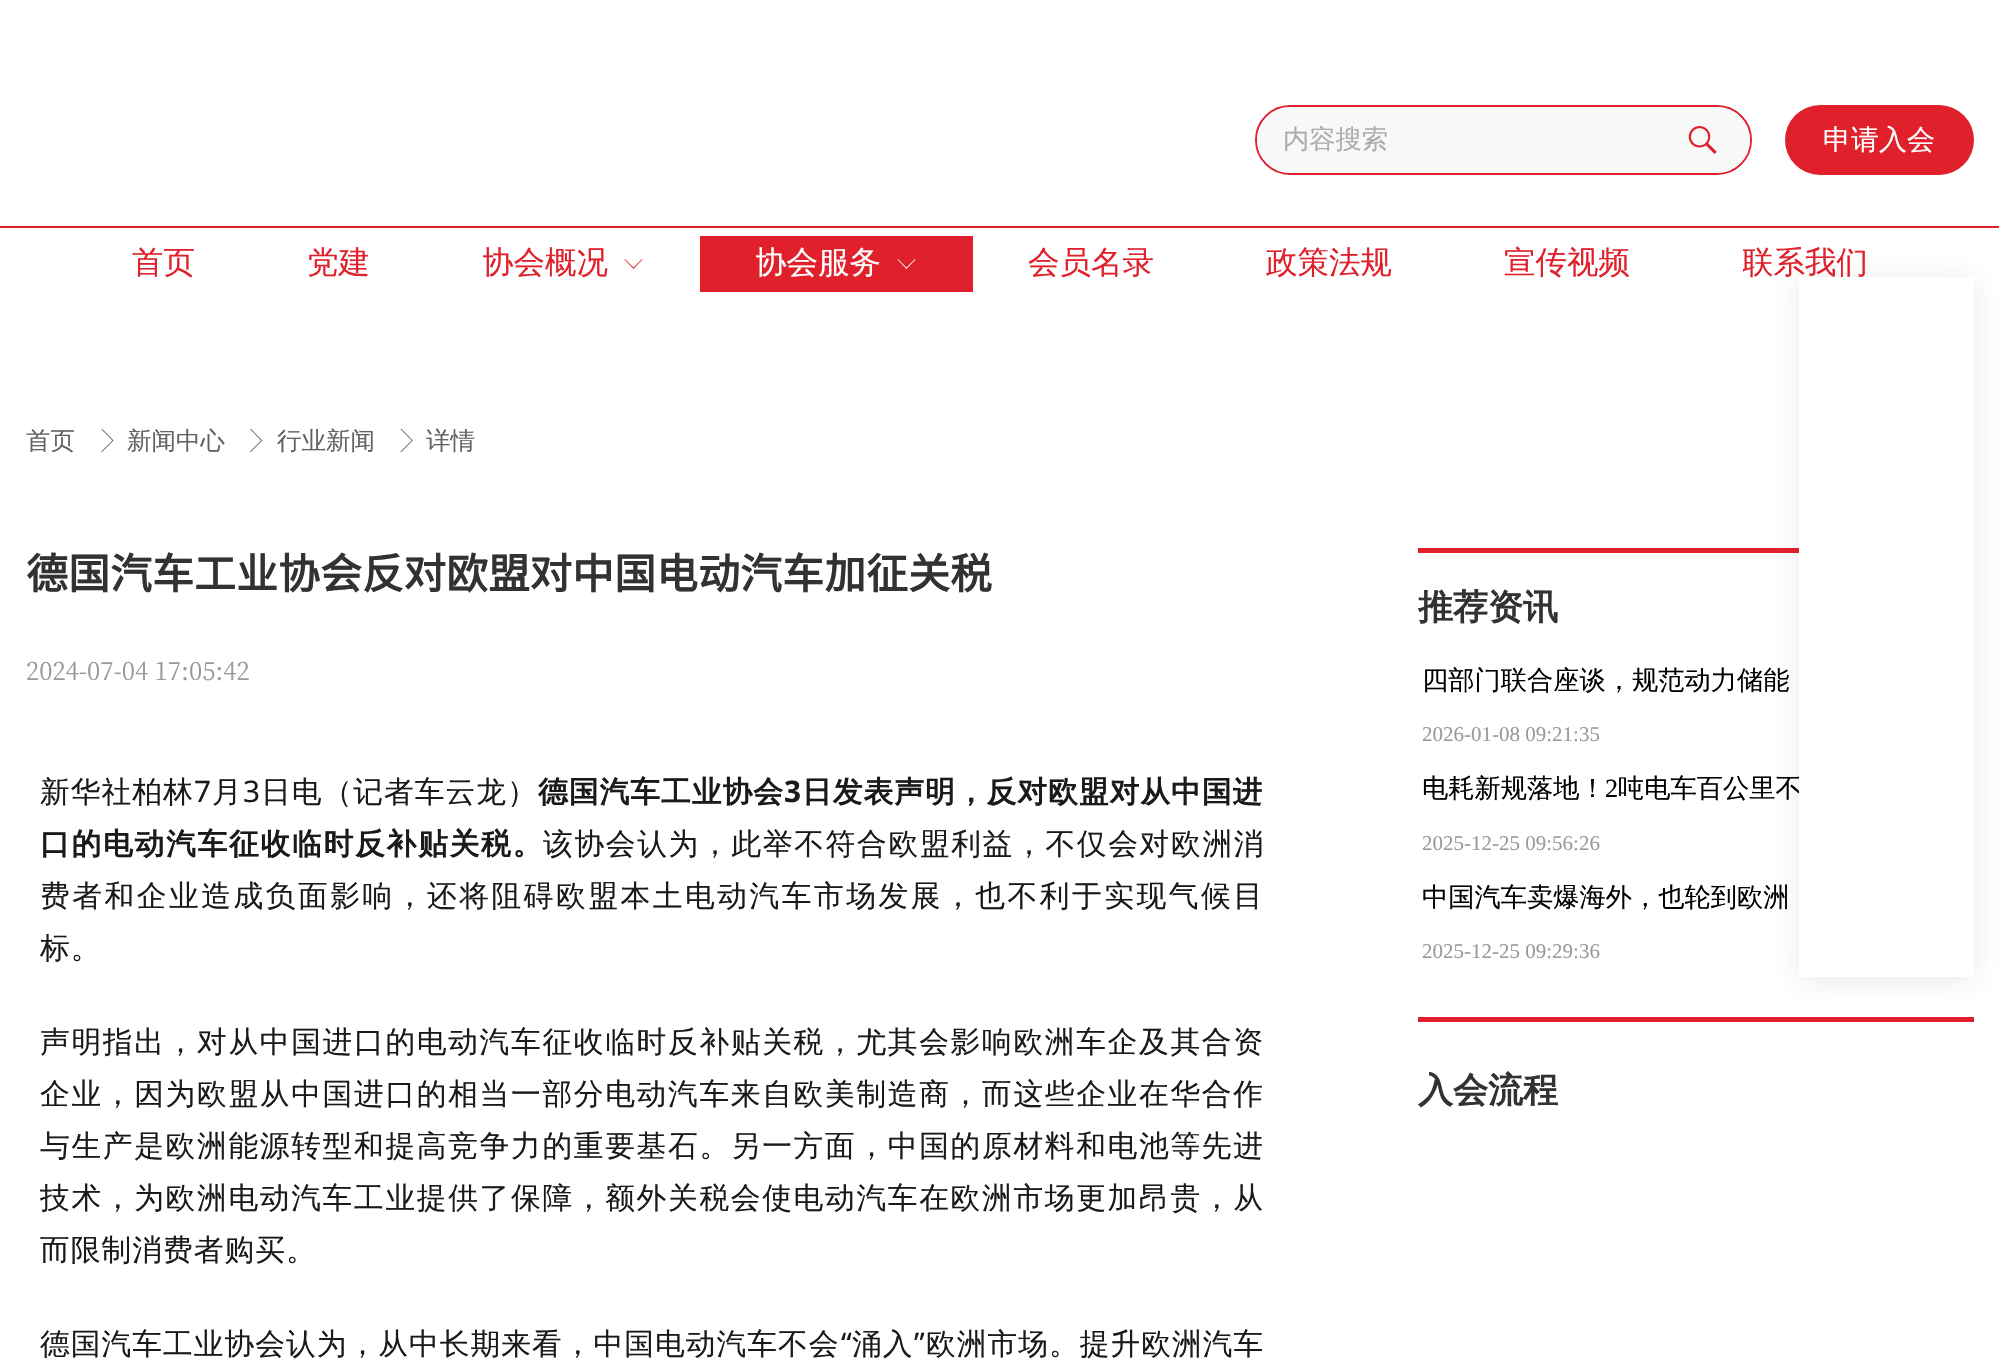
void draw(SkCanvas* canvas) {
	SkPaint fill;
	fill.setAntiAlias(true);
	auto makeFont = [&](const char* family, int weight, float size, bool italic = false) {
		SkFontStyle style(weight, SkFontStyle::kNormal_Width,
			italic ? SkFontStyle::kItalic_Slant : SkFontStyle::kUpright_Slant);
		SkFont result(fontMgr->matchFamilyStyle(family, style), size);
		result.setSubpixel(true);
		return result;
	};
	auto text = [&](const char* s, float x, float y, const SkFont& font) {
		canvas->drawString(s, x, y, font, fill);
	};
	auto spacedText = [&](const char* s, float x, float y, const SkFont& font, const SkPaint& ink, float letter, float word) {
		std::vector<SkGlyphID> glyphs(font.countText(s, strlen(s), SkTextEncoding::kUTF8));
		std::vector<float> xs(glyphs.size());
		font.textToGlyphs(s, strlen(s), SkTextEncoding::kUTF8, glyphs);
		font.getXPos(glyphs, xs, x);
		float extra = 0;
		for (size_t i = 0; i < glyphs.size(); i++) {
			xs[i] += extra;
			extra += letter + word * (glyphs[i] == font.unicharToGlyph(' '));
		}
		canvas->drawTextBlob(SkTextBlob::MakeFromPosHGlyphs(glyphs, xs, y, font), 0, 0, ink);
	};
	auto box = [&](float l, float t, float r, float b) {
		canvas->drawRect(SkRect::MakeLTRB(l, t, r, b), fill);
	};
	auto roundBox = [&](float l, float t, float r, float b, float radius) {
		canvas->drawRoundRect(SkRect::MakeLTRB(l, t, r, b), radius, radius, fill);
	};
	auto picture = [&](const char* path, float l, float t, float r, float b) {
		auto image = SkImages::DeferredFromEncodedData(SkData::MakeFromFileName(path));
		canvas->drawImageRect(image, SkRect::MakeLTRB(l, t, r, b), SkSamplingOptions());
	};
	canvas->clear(0xFFFFFFFF);
	fill.setStyle(SkPaint::kStroke_Style);
	fill.setStrokeWidth(2);
	fill.setColor(0xFFE0202B);
	canvas->drawRoundRect(SkRect::MakeLTRB(1256, 106, 1751, 174), 34, 34, fill);
	fill.setStyle(SkPaint::kFill_Style);
	fill.setColor(0xFFF7F8F8);
	roundBox(1257, 107, 1750, 173, 33);
	picture("image0.png", 1688, 126, 1717, 154);
	fill.setColor(0xFFE0202B);
	roundBox(1785, 105, 1974, 175, 35);
	box(0, 226, 1999, 228);
	canvas->drawPath(SkPathBuilder().moveTo(642.5f, 259.5f).lineTo(633.5f, 269).lineTo(624.5f, 259.5f).lineTo(625, 259).lineTo(633.5f, 267.5f).lineTo(642, 259).close().detach(), fill);
	box(700, 236, 973, 292);
	fill.setColor(0xFFFFFFFF);
	canvas->drawPath(SkPathBuilder().moveTo(915.5f, 259.5f).lineTo(906.5f, 269).lineTo(897.5f, 259.5f).lineTo(898, 259).lineTo(906.5f, 267.5f).lineTo(915, 259).close().detach(), fill);
	picture("image1.png", 101, 428, 114, 452);
	picture("image2.png", 250, 428, 263, 452);
	picture("image3.png", 400, 428, 413, 452);
	fill.setColor(0xFFE0202B);
	box(1418, 548, 1799, 553);
	box(1418, 1017, 1974, 1022);
	fill.setColor(0x1A1E2730);
	fill.setMaskFilter(SkMaskFilter::MakeBlur(kNormal_SkBlurStyle, 14));
	canvas->drawRect(SkRect::MakeLTRB(1799, 280, 1974, 980), fill);
	fill.setMaskFilter(nullptr);
	auto font1 = makeFont("WenQuanYi Zen Hei", 500, 26.25f);
	fill.setColor(0xFFADACAC);
	text("内容搜索", 1283, 148, font1);
	auto font2 = makeFont("WenQuanYi Zen Hei", 500, 28);
	fill.setColor(0xFFFFFFFF);
	text("申请入会", 1823, 149, font2);
	auto font3 = makeFont("WenQuanYi Zen Hei", 500, 31.5f);
	fill.setColor(0xFFE0202B);
	text("首页", 132, 273, font3);
	text("党建", 307, 273, font3);
	canvas->save();
	canvas->clipRect(SkRect::MakeLTRB(483, 240, 609, 287));
	text("协会概况", 482, 273, font3);
	canvas->restore();
	canvas->save();
	canvas->clipRect(SkRect::MakeLTRB(756, 240, 882, 287));
	fill.setColor(0xFFFFFFFF);
	text("协会服务", 755, 273, font3);
	canvas->restore();
	fill.setColor(0xFFE0202B);
	text("会员名录", 1028, 273, font3);
	text("政策法规", 1266, 273, font3);
	text("宣传视频", 1504, 273, font3);
	canvas->save();
	canvas->clipRect(SkRect::MakeLTRB(1743, 240, 1869, 287));
	text("联系我们", 1742, 273, font3);
	canvas->restore();
	auto font4 = makeFont("WenQuanYi Zen Hei", 500, 24.5f);
	fill.setColor(0xFF606266);
	text("首页", 26, 449, font4);
	text("新闻中心", 127, 449, font4);
	text("行业新闻", 277, 449, font4);
	text("详情", 426, 449, font4);
	auto font5 = makeFont("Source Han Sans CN", 700, 42);
	fill.setColor(0xFF323232);
	text("德国汽车工业协会反对欧盟对中国电动汽车加征关税", 26, 589, font5);
	auto font6 = makeFont("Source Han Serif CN", 400, 24.5f);
	fill.setColor(0xFF9A9A9A);
	text("2024-07-04 17:05:42", 26, 680, font6);
	auto font7 = makeFont("WenQuanYi Zen Hei", 500, 29.75f);
	fill.setColor(0xFF1A1A1A);
	spacedText("新华社柏林", 40, 802, font7, fill, 1, 0);
	auto font8 = makeFont("Noto Sans", 400, 29.75f);
	spacedText("7", 194, 802, font8, fill, 1, 0);
	spacedText("月", 212, 802, font7, fill, 1, 0);
	spacedText("3", 243, 802, font8, fill, 1, 0);
	spacedText("日电（记者车云龙）", 261, 802, font7, fill, 1, 0);
	auto font9 = makeFont("WenQuanYi Zen Hei", 700, 29.75f);
	spacedText("德国汽车工业协会", 538, 802, font9, fill, 1, 0);
	auto font10 = makeFont("Noto Sans", 700, 29.75f);
	spacedText("3", 784, 802, font10, fill, 1, 0);
	spacedText("日发表声明，反对欧盟对从中国进", 802, 802, font9, fill, 1, 0);
	spacedText("口的电动汽车征收临时反补贴关税。", 40, 854, font9, fill, 1.75f, 0);
	spacedText("该协会认为，此举不符合欧盟利益，不仅会对欧洲消", 543, 854, font7, fill, 1.65f, 0);
	spacedText("费者和企业造成负面影响，还将阻碍欧盟本土电动汽车市场发展，也不利于实现气候目", 40, 906, font7, fill, 2.5f, 0);
	spacedText("标。", 40, 958, font7, fill, 1, 0);
	spacedText("声明指出，对从中国进口的电动汽车征收临时反补贴关税，尤其会影响欧洲车企及其合资", 40, 1052, font7, fill, 1.65f, 0);
	spacedText("企业，因为欧盟从中国进口的相当一部分电动汽车来自欧美制造商，而这些企业在华合作", 40, 1104, font7, fill, 1.65f, 0);
	spacedText("与生产是欧洲能源转型和提高竞争力的重要基石。另一方面，中国的原材料和电池等先进", 40, 1156, font7, fill, 1.65f, 0);
	spacedText("技术，为欧洲电动汽车工业提供了保障，额外关税会使电动汽车在欧洲市场更加昂贵，从", 40, 1208, font7, fill, 1.65f, 0);
	spacedText("而限制消费者购买。", 40, 1260, font7, fill, 1, 0);
	spacedText("德国汽车工业协会认为，从中长期来看，中国电动汽车不会", 40, 1354, font7, fill, 1, 0);
	spacedText("“", 841, 1354, font8, fill, 1, 0);
	spacedText("涌入", 852, 1354, font7, fill, 1, 0);
	spacedText("”", 914, 1354, font8, fill, 1, 0);
	spacedText("欧洲市场。提升欧洲汽车", 926, 1354, font7, fill, 1, 0);
	auto font11 = makeFont("WenQuanYi Zen Hei", 700, 35);
	fill.setColor(0xFF323232);
	text("推荐资讯", 1418, 619, font11);
	fill.setColor(0xFF000000);
	text("四部门联合座谈，规范动力储能", 1422, 689, font1);
	auto font12 = makeFont("Liberation Serif", 400, 21);
	fill.setColor(0xFF9A9A9A);
	text("2026-01-08 09:21:35", 1422, 741, font12);
	fill.setColor(0xFF000000);
	text("电耗新规落地！", 1422, 797, font1);
	auto font13 = makeFont("Liberation Serif", 400, 26.25f);
	text("2", 1605, 797, font13);
	text("吨电车百公里不", 1618, 797, font1);
	fill.setColor(0xFF9A9A9A);
	text("2025-12-25 09:56:26", 1422, 850, font12);
	fill.setColor(0xFF000000);
	text("中国汽车卖爆海外，也轮到欧洲", 1422, 906, font1);
	fill.setColor(0xFF9A9A9A);
	text("2025-12-25 09:29:36", 1422, 958, font12);
	fill.setColor(0xFF323232);
	text("入会流程", 1418, 1102, font11);
	fill.setColor(0xFFFFFFFF);
	box(1799, 277, 1974, 977);
}
